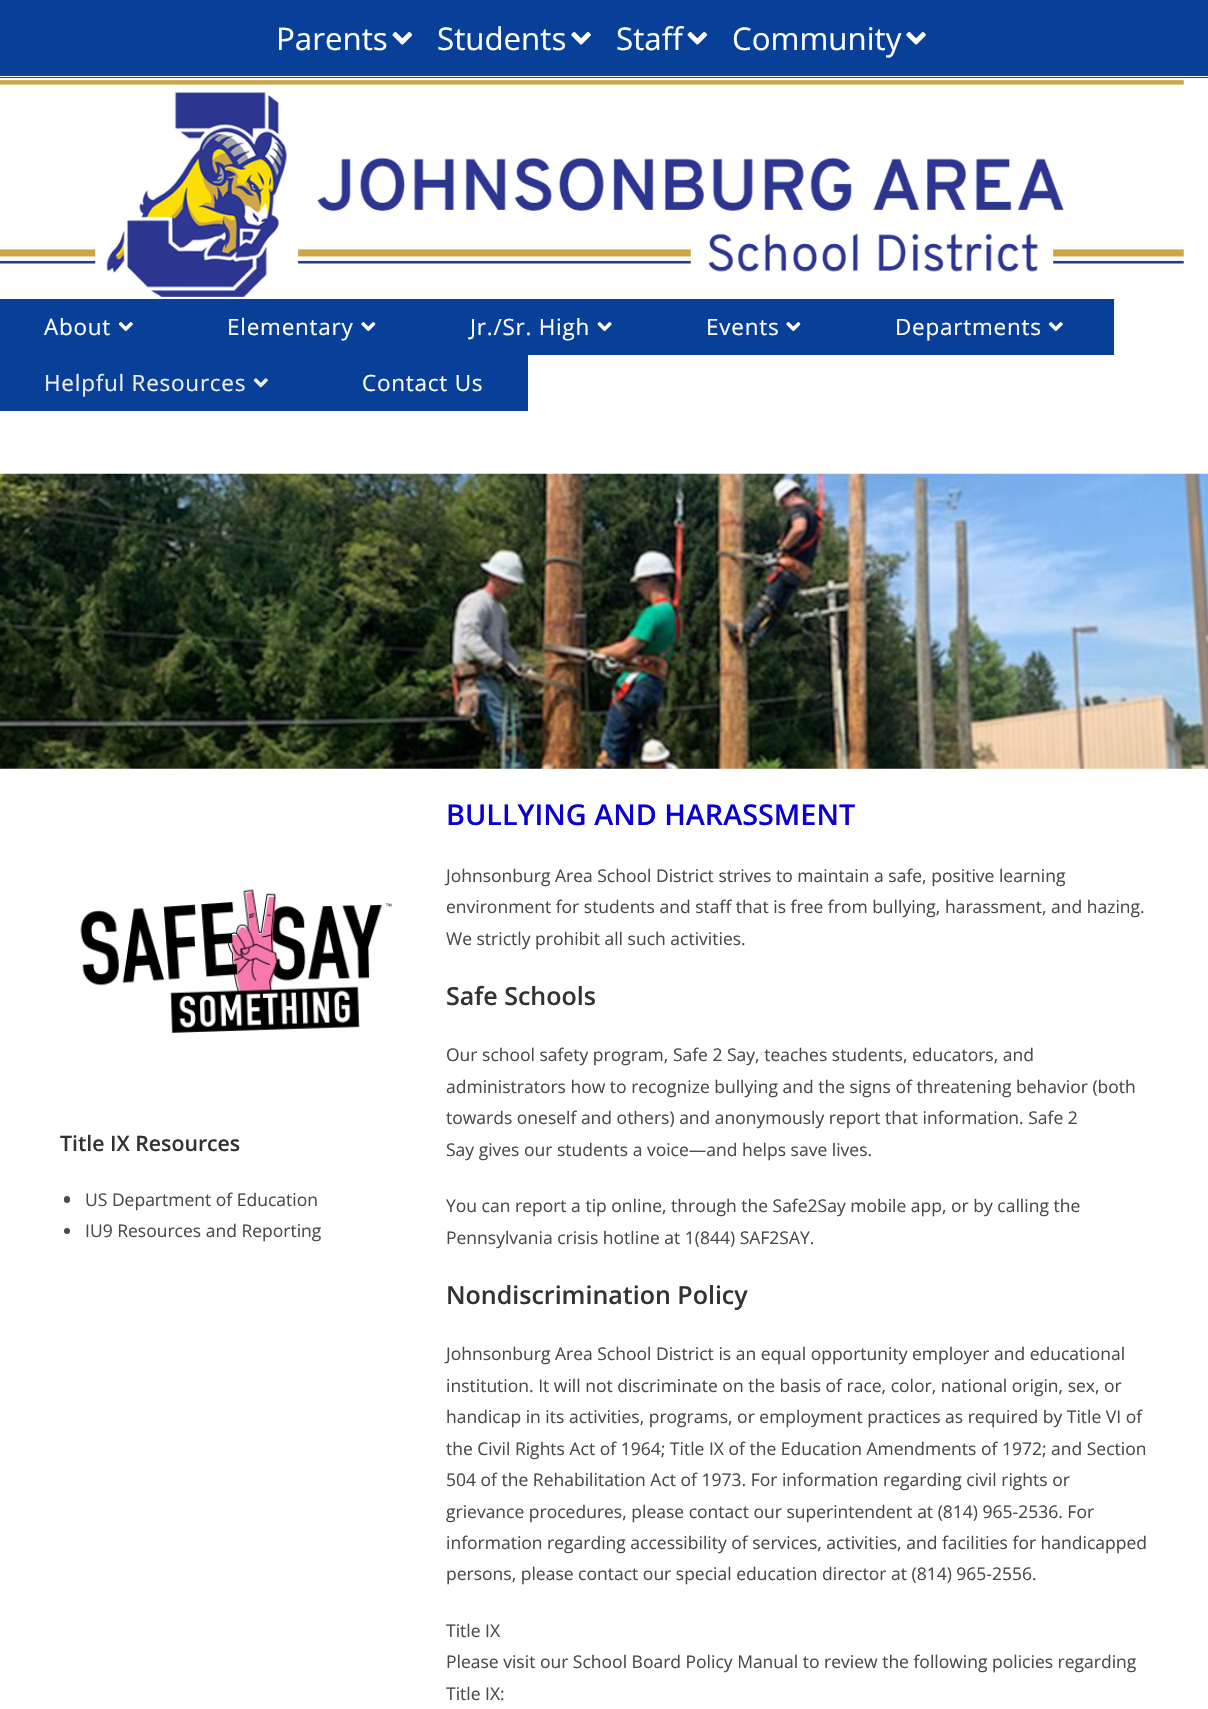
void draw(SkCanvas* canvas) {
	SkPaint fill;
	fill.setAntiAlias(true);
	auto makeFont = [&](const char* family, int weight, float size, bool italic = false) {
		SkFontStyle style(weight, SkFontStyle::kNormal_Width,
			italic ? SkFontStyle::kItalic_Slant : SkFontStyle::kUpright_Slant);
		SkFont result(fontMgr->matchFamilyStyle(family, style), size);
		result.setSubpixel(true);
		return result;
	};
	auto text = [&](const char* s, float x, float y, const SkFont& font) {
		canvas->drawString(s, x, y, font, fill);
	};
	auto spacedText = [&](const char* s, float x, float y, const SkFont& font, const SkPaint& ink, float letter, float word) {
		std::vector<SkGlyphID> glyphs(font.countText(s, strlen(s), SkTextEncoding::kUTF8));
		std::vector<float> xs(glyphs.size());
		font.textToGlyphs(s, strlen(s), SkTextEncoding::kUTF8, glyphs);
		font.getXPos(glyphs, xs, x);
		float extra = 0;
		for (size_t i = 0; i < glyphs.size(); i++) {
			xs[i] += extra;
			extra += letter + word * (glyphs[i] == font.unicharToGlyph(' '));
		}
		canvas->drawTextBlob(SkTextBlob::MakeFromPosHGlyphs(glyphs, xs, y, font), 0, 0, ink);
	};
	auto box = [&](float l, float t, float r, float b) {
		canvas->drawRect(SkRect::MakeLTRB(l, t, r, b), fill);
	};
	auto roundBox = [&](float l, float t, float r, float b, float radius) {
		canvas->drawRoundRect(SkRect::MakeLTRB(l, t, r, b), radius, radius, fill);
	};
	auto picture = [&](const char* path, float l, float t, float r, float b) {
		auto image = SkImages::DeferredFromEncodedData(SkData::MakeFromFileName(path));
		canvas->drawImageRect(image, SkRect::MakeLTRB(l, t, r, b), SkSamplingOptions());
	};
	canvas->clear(0xFFFFFFFF);
	fill.setColor(0xFF073F99);
	box(0, 0, 1208, 78);
	fill.setColor(0xFFFFFFFF);
	box(0, 76, 1208, 77);
	picture("image0.png", 392, 32, 413, 45);
	picture("image1.png", 571, 32, 591, 45);
	picture("image0.png", 687, 32, 708, 45);
	picture("image1.png", 906, 32, 926, 45);
	picture("image2.png", 0, 80, 1184, 297);
	fill.setColor(0xFF073F99);
	box(0, 299, 1114, 355);
	picture("image3.png", 118, 322, 133, 332);
	picture("image4.png", 361, 322, 376, 332);
	picture("image5.png", 597, 322, 612, 332);
	picture("image4.png", 786, 322, 801, 332);
	picture("image3.png", 1048, 322, 1063, 332);
	box(0, 355, 528, 411);
	picture("image6.png", 253, 378, 268, 388);
	picture("image7.png", 0, 473, 1208, 769);
	picture("image8.png", 80, 889, 392, 1033);
	fill.setColor(0xFF4A4A4A);
	roundBox(64, 1196, 70, 1203, 3);
	canvas->drawCircle(67, 1231, 3, fill);
	auto font1 = makeFont("Open Sans", 400, 31.25f);
	fill.setColor(0xFFFFFFFF);
	text("Parents", 276, 50, font1);
	text("Students", 437, 50, font1);
	text("Staff", 616, 50, font1);
	text("Community", 732, 50, font1);
	auto font2 = makeFont("Open Sans", 400, 22.5f);
	spacedText("About", 44, 335, font2, fill, 0.75f, 0);
	spacedText("Elementary", 227, 335, font2, fill, 0.75f, 0);
	spacedText("Jr./Sr. High", 470, 335, font2, fill, 0.75f, 0);
	spacedText("Events", 706, 335, font2, fill, 0.75f, 0);
	spacedText("Departments", 895, 335, font2, fill, 0.75f, 0);
	fill.setColor(0xFFEFEFEF);
	spacedText("Helpful Resources", 44, 391, font2, fill, 0.75f, 0);
	fill.setColor(0xFFFFFFFF);
	spacedText("Contact Us", 362, 391, font2, fill, 0.75f, 0);
	auto font3 = makeFont("Open Sans", 600, 21.25f);
	fill.setColor(0xFF333333);
	text("Title IX Resources", 60, 1151, font3);
	auto font4 = makeFont("Open Sans", 400, 17.5f);
	fill.setColor(0xFF4A4A4A);
	text("US Department of Education", 85, 1206, font4);
	text("IU9 Resources and Reporting", 85, 1237, font4);
	auto font5 = makeFont("Open Sans", 600, 28.75f);
	fill.setColor(0xFF0A00CF);
	text("BULLYING AND HARASSMENT", 446, 825, font5);
	fill.setColor(0xFF4A4A4A);
	text("Johnsonburg Area School District strives to maintain a safe, positive learning", 446, 882, font4);
	text("environment for students and staff that is free from bullying, harassment, and hazing.", 446, 913, font4);
	text("We strictly prohibit all such activities.", 446, 945, font4);
	auto font6 = makeFont("Open Sans", 600, 25);
	fill.setColor(0xFF333333);
	text("Safe Schools", 446, 1005, font6);
	fill.setColor(0xFF4A4A4A);
	text("Our school safety program, Safe 2 Say, teaches students, educators, and", 446, 1061, font4);
	text("administrators how to recognize bullying and the signs of threatening behavior (both", 446, 1093, font4);
	text("towards oneself and others) and anonymously report that information. Safe 2", 446, 1124, font4);
	text("Say gives our students a voice—and helps save lives.", 446, 1156, font4);
	text("You can report a tip online, through the Safe2Say mobile app, or by calling the", 446, 1212, font4);
	text("Pennsylvania crisis hotline at 1(844) SAF2SAY.", 446, 1244, font4);
	fill.setColor(0xFF333333);
	text("Nondiscrimination Policy", 446, 1304, font6);
	fill.setColor(0xFF4A4A4A);
	text("Johnsonburg Area School District is an equal opportunity employer and educational", 446, 1360, font4);
	text("institution. It will not discriminate on the basis of race, color, national origin, sex, or", 446, 1392, font4);
	text("handicap in its activities, programs, or employment practices as required by Title VI of", 446, 1423, font4);
	text("the Civil Rights Act of 1964; Title IX of the Education Amendments of 1972; and Section", 446, 1455, font4);
	text("504 of the Rehabilitation Act of 1973. For information regarding civil rights or", 446, 1486, font4);
	text("grievance procedures, please contact our superintendent at (814) 965-2536. For", 446, 1518, font4);
	text("information regarding accessibility of services, activities, and facilities for handicapped", 446, 1549, font4);
	text("persons, please contact our special education director at (814) 965-2556.", 446, 1580, font4);
	text("Title IX", 446, 1637, font4);
	text("Please visit our School Board Policy Manual to review the following policies regarding", 446, 1668, font4);
	text("Title IX:", 446, 1700, font4);
}
